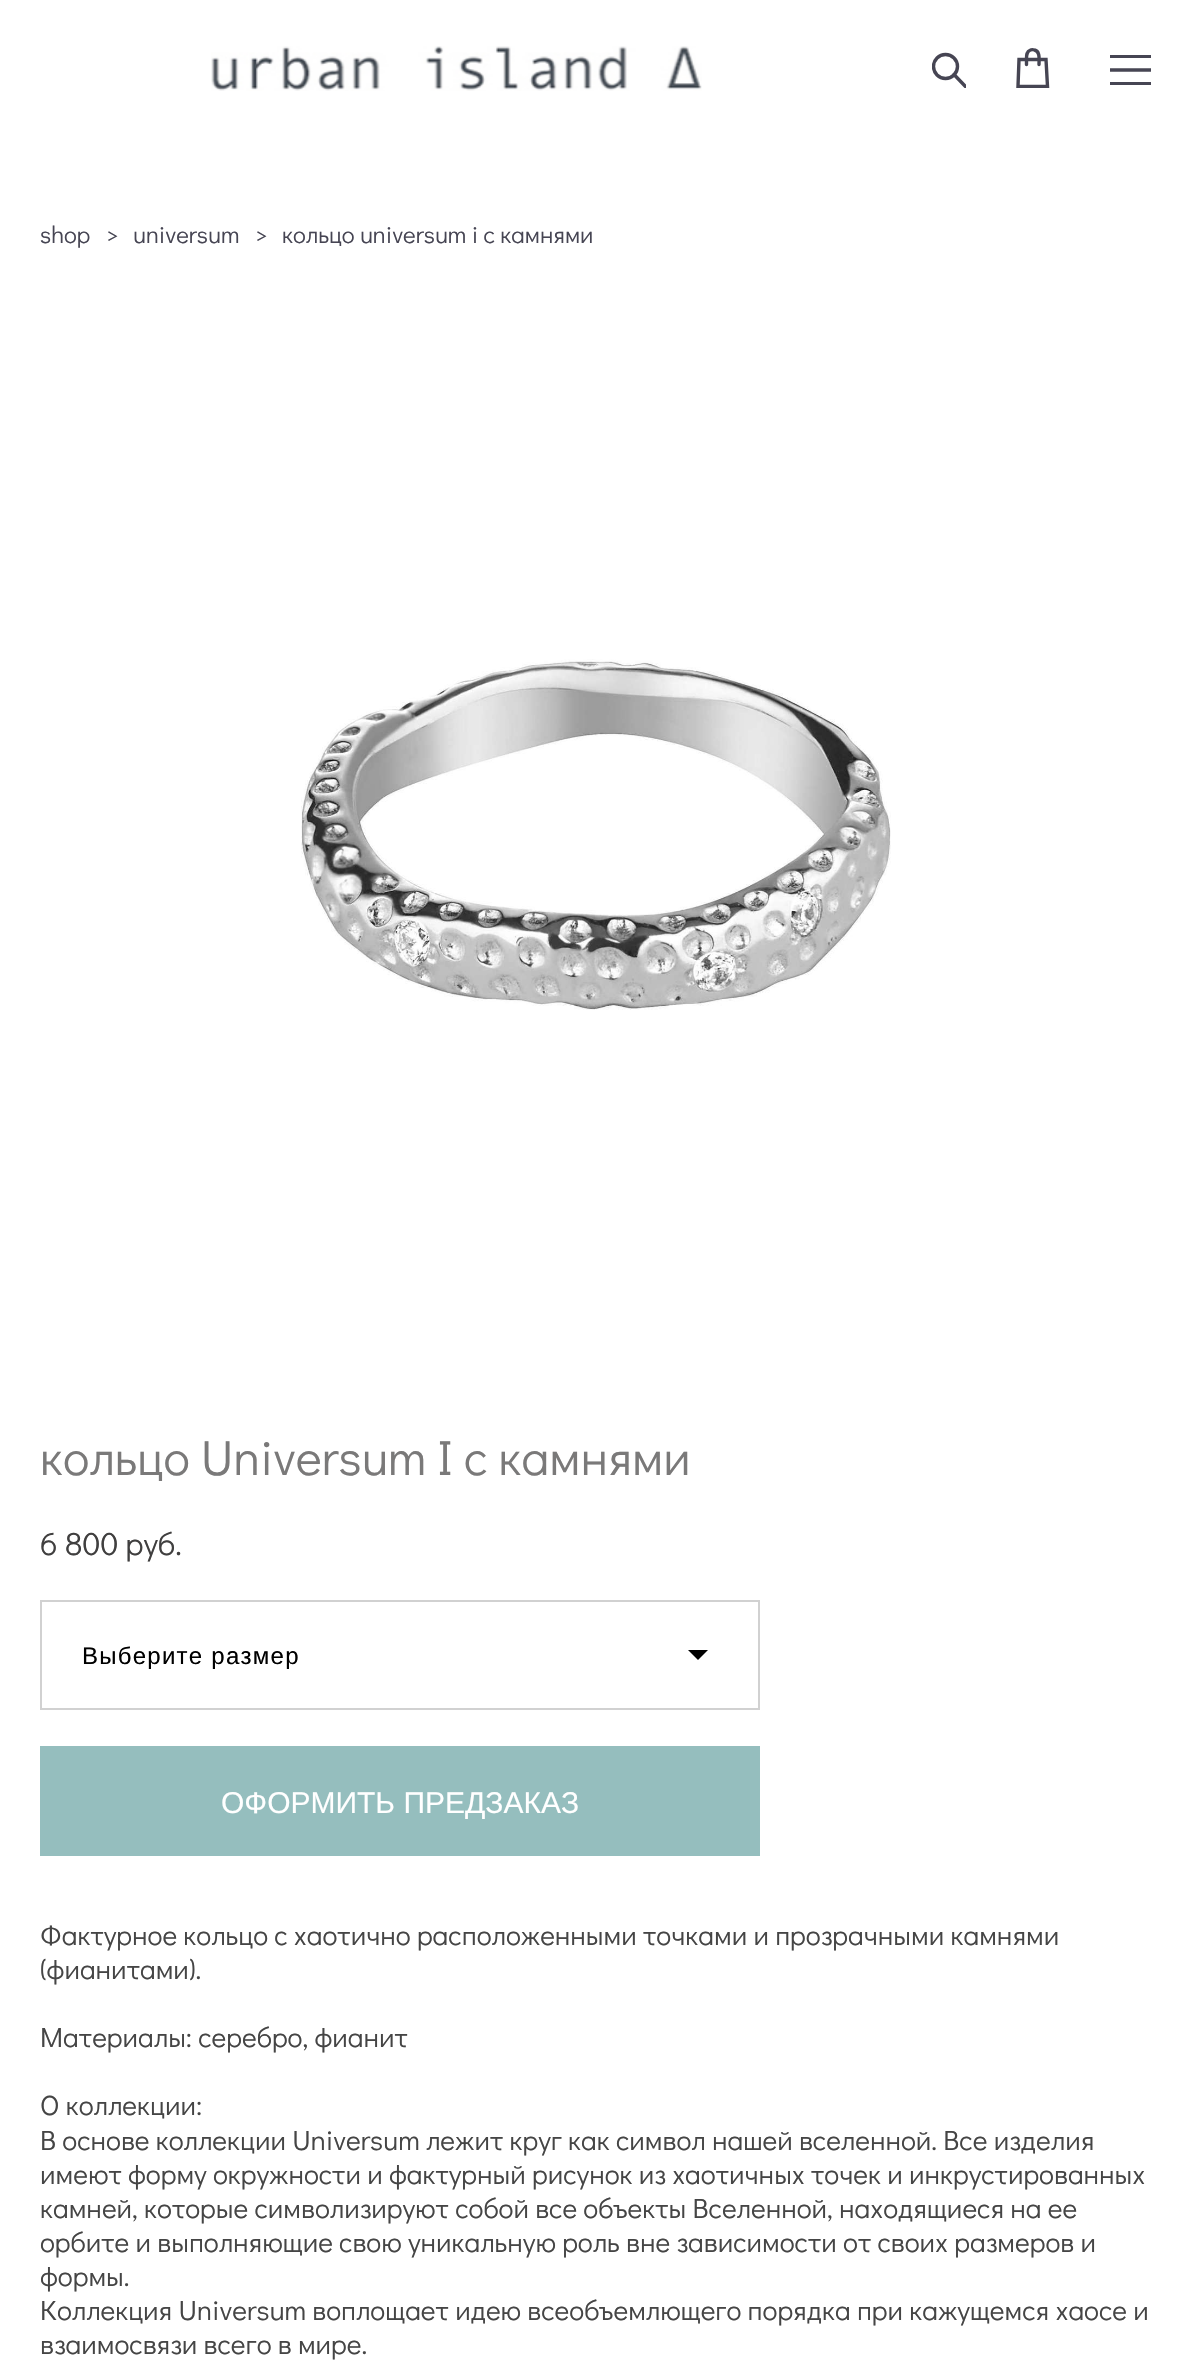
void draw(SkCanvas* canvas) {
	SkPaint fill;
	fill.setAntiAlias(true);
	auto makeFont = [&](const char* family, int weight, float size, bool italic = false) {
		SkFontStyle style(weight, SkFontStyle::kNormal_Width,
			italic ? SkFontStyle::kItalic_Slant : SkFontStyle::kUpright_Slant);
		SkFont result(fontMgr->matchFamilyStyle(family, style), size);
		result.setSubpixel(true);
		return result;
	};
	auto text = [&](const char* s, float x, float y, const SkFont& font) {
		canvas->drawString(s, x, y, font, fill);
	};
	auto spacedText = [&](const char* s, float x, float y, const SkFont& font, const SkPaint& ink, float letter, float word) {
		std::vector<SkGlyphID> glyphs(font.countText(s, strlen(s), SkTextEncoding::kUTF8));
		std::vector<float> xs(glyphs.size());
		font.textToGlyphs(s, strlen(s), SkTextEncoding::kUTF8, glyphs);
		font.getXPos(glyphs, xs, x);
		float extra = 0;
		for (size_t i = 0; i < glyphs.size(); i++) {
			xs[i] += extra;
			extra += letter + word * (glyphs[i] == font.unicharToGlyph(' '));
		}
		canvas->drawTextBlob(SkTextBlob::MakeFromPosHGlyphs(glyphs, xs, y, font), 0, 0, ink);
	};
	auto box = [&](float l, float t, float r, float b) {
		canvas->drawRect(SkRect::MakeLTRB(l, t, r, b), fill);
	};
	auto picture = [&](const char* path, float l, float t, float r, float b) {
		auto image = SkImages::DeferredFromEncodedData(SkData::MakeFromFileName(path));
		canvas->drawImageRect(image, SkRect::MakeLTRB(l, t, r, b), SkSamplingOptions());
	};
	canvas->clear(0xFFFFFFFF);
	picture("image0.png", 211, 46, 702, 91);
	canvas->save();
	canvas->clipRect(SkRect::MakeLTRB(932, 48, 966, 88));
	fill.setStyle(SkPaint::kStroke_Style);
	fill.setStrokeWidth(3.4f);
	fill.setColor(0xFF464553);
	canvas->drawCircle(945.5f, 66.5f, 12, fill);
	fill.setStrokeCap(SkPaint::kRound_Cap);
	fill.setStrokeJoin(SkPaint::kRound_Join);
	canvas->drawPath(SkPathBuilder().moveTo(954, 74.5f).lineTo(965.5f, 86.5f).detach(), fill);
	canvas->restore();
	canvas->drawPath(SkPathBuilder().moveTo(1026.5f, 64.5f).lineTo(1026.5f, 58.5f).cubicTo(1026.5f, 55, 1026.5f, 51.5f, 1030.5f, 50).cubicTo(1031.5f, 49.5f, 1033, 49.5f, 1034.5f, 50).cubicTo(1036.5f, 50.5f, 1038, 52, 1038.5f, 54).cubicTo(1039.5f, 56.5f, 1039, 61.5f, 1039, 64.5f).detach(), fill);
	canvas->save();
	canvas->clipRect(SkRect::MakeLTRB(1016, 48, 1050, 88));
	fill.setStrokeCap(SkPaint::kButt_Cap);
	fill.setStrokeJoin(SkPaint::kMiter_Join);
	canvas->drawPath(SkPathBuilder().moveTo(1047.5f, 86.5f).lineTo(1018, 86.5f).lineTo(1019, 59.5f).lineTo(1046, 59.5f).close().detach(), fill);
	canvas->restore();
	fill.setStyle(SkPaint::kFill_Style);
	box(1110, 55, 1151, 58);
	fill.setStyle(SkPaint::kStroke_Style);
	canvas->drawPath(SkPathBuilder().moveTo(1110, 70).lineTo(1151, 70).detach(), fill);
	fill.setStyle(SkPaint::kFill_Style);
	box(1110, 82, 1151, 85);
	picture("image1.png", 301, 659, 891, 1010);
	fill.setStyle(SkPaint::kStroke_Style);
	fill.setStrokeWidth(2);
	fill.setColor(0xFFD1D1D1);
	canvas->drawRect(SkRect::MakeLTRB(41, 1601, 759, 1709), fill);
	fill.setStyle(SkPaint::kFill_Style);
	fill.setColor(0xFF000000);
	canvas->drawPath(SkPathBuilder().moveTo(688, 1650).lineTo(708, 1650).lineTo(698, 1660).close().detach(), fill);
	fill.setColor(0xFF95BEBE);
	box(40, 1746, 760, 1856);
	auto font1 = makeFont("Didact Gothic", 400, 24);
	fill.setColor(0xFF464553);
	text("shop", 40, 243, font1);
	text(">", 106, 243, font1);
	text("universum", 133, 243, font1);
	text(">", 255, 243, font1);
	text("кольцо universum i c камнями", 282, 243, font1);
	auto font2 = makeFont("Didact Gothic", 400, 49.5f);
	fill.setColor(0xFF7A7979);
	text("кольцо Universum I c камнями", 40, 1475, font2);
	auto font3 = makeFont("Didact Gothic", 400, 32);
	fill.setColor(0xFF403F3F);
	text("6 800 pуб.", 40, 1555, font3);
	auto font4 = makeFont("Liberation Sans", 400, 24);
	fill.setColor(0xFF000000);
	spacedText("Выберите размер", 82, 1664, font4, fill, 1.25f, 0);
	auto font5 = makeFont("Liberation Sans", 400, 30);
	fill.setColor(0xFFFFFFFF);
	text("ОФОРМИТЬ ПРЕДЗАКАЗ", 221, 1813, font5);
	auto font6 = makeFont("Didact Gothic", 400, 28);
	fill.setColor(0xFF454545);
	text("Фактурное кольцо с хаотично расположенными точками и прозрачными камнями", 40, 1945, font6);
	text("(фианитами).", 40, 1979, font6);
	text("Материалы: серебро, фианит", 40, 2047, font6);
	text("О коллекции:", 40, 2115, font6);
	text("B основе коллекции Universum лежит круг как символ нашей вселенной. Все изделия", 40, 2150, font6);
	text("имеют форму окружности и фактурный рисунок из хаотичных точек и инкрустированных", 40, 2184, font6);
	text("камней, которые символизируют собой все объекты Вселенной, находящиеся на ее", 40, 2218, font6);
	text("орбите и выполняющие свою уникальную роль вне зависимости от своих размеров и", 40, 2252, font6);
	text("формы.", 40, 2286, font6);
	text("Коллекция Universum воплощает идею всеобъемлющего порядка при кажущемся хаосе и", 40, 2320, font6);
	text("взаимосвязи всего в мире.", 40, 2354, font6);
}
